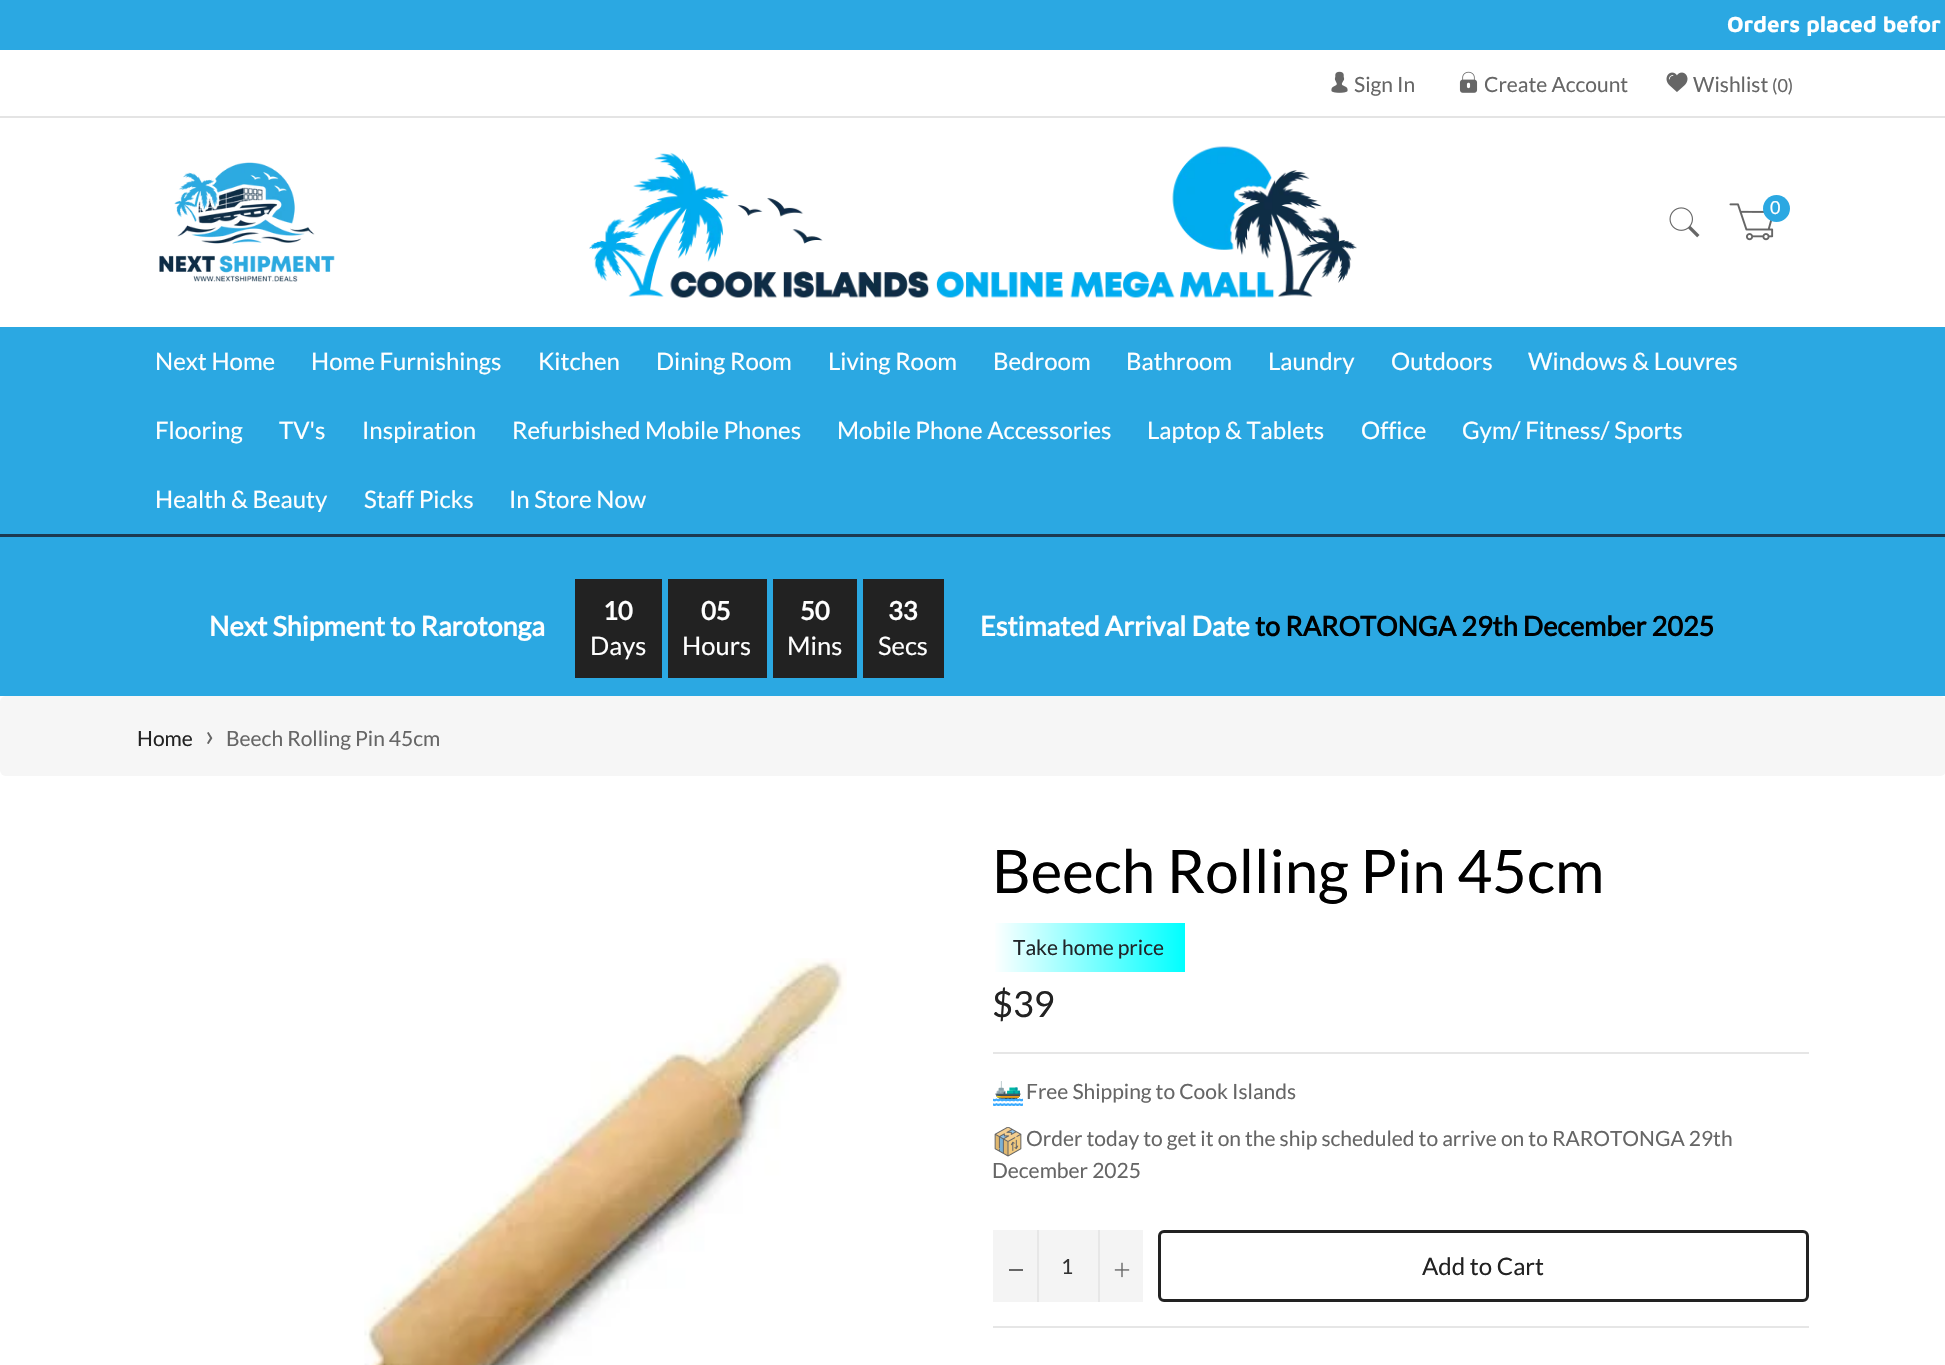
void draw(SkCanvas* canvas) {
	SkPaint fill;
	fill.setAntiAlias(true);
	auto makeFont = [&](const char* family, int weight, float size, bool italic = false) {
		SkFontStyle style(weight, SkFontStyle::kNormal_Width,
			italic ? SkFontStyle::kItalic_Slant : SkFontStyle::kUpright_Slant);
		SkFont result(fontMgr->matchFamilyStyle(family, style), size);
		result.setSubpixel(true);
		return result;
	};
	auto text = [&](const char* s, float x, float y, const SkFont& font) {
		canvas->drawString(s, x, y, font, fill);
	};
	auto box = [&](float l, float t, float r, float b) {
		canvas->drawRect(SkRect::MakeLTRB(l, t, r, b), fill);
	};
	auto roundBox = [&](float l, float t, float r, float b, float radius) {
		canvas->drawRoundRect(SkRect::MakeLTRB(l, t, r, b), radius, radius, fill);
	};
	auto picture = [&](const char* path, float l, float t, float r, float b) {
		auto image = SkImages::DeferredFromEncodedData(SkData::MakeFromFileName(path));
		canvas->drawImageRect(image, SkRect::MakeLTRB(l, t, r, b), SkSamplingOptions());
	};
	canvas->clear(0xFFFFFFFF);
	fill.setColor(0xFF2BA8E2);
	box(0, 0, 1945, 50);
	fill.setColor(0xFFE4E4E4);
	box(0, 116, 1945, 118);
	picture("image0.png", 1331, 71, 1348, 93);
	picture("image1.png", 1459, 71, 1478, 93);
	picture("image2.png", 1666, 72, 1688, 92);
	fill.setColor(0xFF1C3950);
	box(0, 534, 1945, 537);
	picture("image3.png", 159, 162, 335, 282);
	picture("image4.png", 589, 146, 1357, 298);
	picture("image5.png", 1669, 207, 1700, 238);
	picture("image6.png", 1729, 203, 1774, 241);
	fill.setColor(0xFF2BA8E2);
	canvas->drawCircle(1776.5f, 208.5f, 13.5f, fill);
	box(0, 327, 1945, 534);
	box(0, 537, 1945, 696);
	fill.setColor(0xFF222222);
	box(575, 579, 662, 678);
	box(668, 579, 767, 678);
	box(773, 579, 857, 678);
	box(863, 579, 944, 678);
	fill.setColor(0xFFF6F6F6);
	roundBox(0, 696, 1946, 776, 6);
	picture("image7.png", 364, 958, 847, 1365);
	{
		const SkColor colors[] = {0xFFFFFFFF, 0xFF00FFFF};
		const float stops[] = {0, 1};
		const SkPoint ends[] = {{993, 947}, {1185, 947}};
		fill.setShader(SkGradientShader::MakeLinear(ends, colors, stops, 2, SkTileMode::kClamp));
		fill.setAlpha(255);
	}
	box(995, 923, 1185, 972);
	fill.setShader(nullptr);
	fill.setColor(0xFFE6E6E6);
	box(993, 1052, 1809, 1054);
	picture("image8.png", 993, 1081, 1023, 1106);
	picture("image9.png", 994, 1127, 1022, 1157);
	fill.setColor(0xFFF4F4F4);
	box(993, 1230, 1143, 1302);
	fill.setColor(0xFFE7E7E7);
	box(1037, 1230, 1039, 1302);
	fill.setColor(0xFF666666);
	box(1009, 1269, 1023, 1271);
	fill.setColor(0xFFE7E7E7);
	box(1098, 1230, 1100, 1302);
	picture("image10.png", 1114, 1262, 1130, 1278);
	fill.setStyle(SkPaint::kStroke_Style);
	fill.setStrokeWidth(3);
	fill.setColor(0xFF222222);
	canvas->drawRoundRect(SkRect::MakeLTRB(1159.5f, 1231.5f, 1807.5f, 1300.5f), 4.5f, 4.5f, fill);
	fill.setStyle(SkPaint::kFill_Style);
	fill.setColor(0xFFE6E6E6);
	box(993, 1326, 1809, 1328);
	auto font1 = makeFont("Maven Pro", 700, 22.5f);
	fill.setColor(0xFFFFFFFF);
	text("Orders placed befor", 1727, 32, font1);
	auto font2 = makeFont("Lato", 400, 21);
	fill.setColor(0xFF666666);
	text("Sign In", 1354, 92, font2);
	text("Create Account", 1484, 92, font2);
	text("Wishlist", 1693, 92, font2);
	auto font3 = makeFont("Lato", 400, 18);
	text("(0)", 1772, 92, font3);
	fill.setColor(0xFFFFFFFF);
	text("0", 1770, 214, font3);
	auto font4 = makeFont("Lato", 400, 24);
	text("Next Home", 155, 370, font4);
	text("Home Furnishings", 311, 370, font4);
	text("Kitchen", 538, 370, font4);
	text("Dining Room", 656, 370, font4);
	text("Living Room", 828, 370, font4);
	text("Bedroom", 993, 370, font4);
	text("Bathroom", 1126, 370, font4);
	text("Laundry", 1268, 370, font4);
	text("Outdoors", 1391, 370, font4);
	text("Windows & Louvres", 1528, 370, font4);
	text("Flooring", 155, 439, font4);
	text("TV's", 279, 439, font4);
	text("Inspiration", 362, 439, font4);
	text("Refurbished Mobile Phones", 512, 439, font4);
	text("Mobile Phone Accessories", 837, 439, font4);
	text("Laptop & Tablets", 1147, 439, font4);
	text("Office", 1361, 439, font4);
	text("Gym/ Fitness/ Sports", 1462, 439, font4);
	text("Health & Beauty", 155, 508, font4);
	text("Staff Picks", 364, 508, font4);
	text("In Store Now", 509, 508, font4);
	auto font5 = makeFont("Lato", 700, 27);
	text("Next Shipment to Rarotonga", 209, 636, font5);
	auto font6 = makeFont("Lato", 700, 25.5f);
	text("10", 603, 620, font6);
	auto font7 = makeFont("Lato", 400, 25.5f);
	text("Days", 590, 655, font7);
	text("05", 701, 620, font6);
	text("Hours", 682, 655, font7);
	text("50", 800, 620, font6);
	text("Mins", 787, 655, font7);
	text("33", 888, 620, font6);
	text("Secs", 878, 655, font7);
	text("Estimated Arrival Date", 980, 636, font5);
	fill.setColor(0xFF000000);
	text("to RAROTONGA 29th December 2025", 1255, 636, font5);
	fill.setColor(0xFF222222);
	text("Home", 137, 746, font2);
	auto font8 = makeFont("Lato", 400, 30);
	fill.setColor(0xFF666666);
	text("›", 205, 746, font8);
	text("Beech Rolling Pin 45cm", 226, 746, font2);
	auto font9 = makeFont("Lato", 400, 60);
	fill.setColor(0xFF000000);
	text("Beech Rolling Pin 45cm", 992, 893, font9);
	fill.setColor(0xFF212529);
	text("Take home price", 1013, 955, font2);
	auto font10 = makeFont("Lato", 400, 36);
	fill.setColor(0xFF222222);
	text("$39", 992, 1017, font10);
	fill.setColor(0xFF666666);
	text("Free Shipping to Cook Islands", 1026, 1099, font2);
	text("Order today to get it on the ship scheduled to arrive on to RAROTONGA 29th", 1026, 1146, font2);
	text("December 2025", 992, 1178, font2);
	fill.setColor(0xFF333333);
	text("1", 1061, 1274, font2);
	fill.setColor(0xFF222222);
	text("Add to Cart", 1422, 1275, font4);
}
